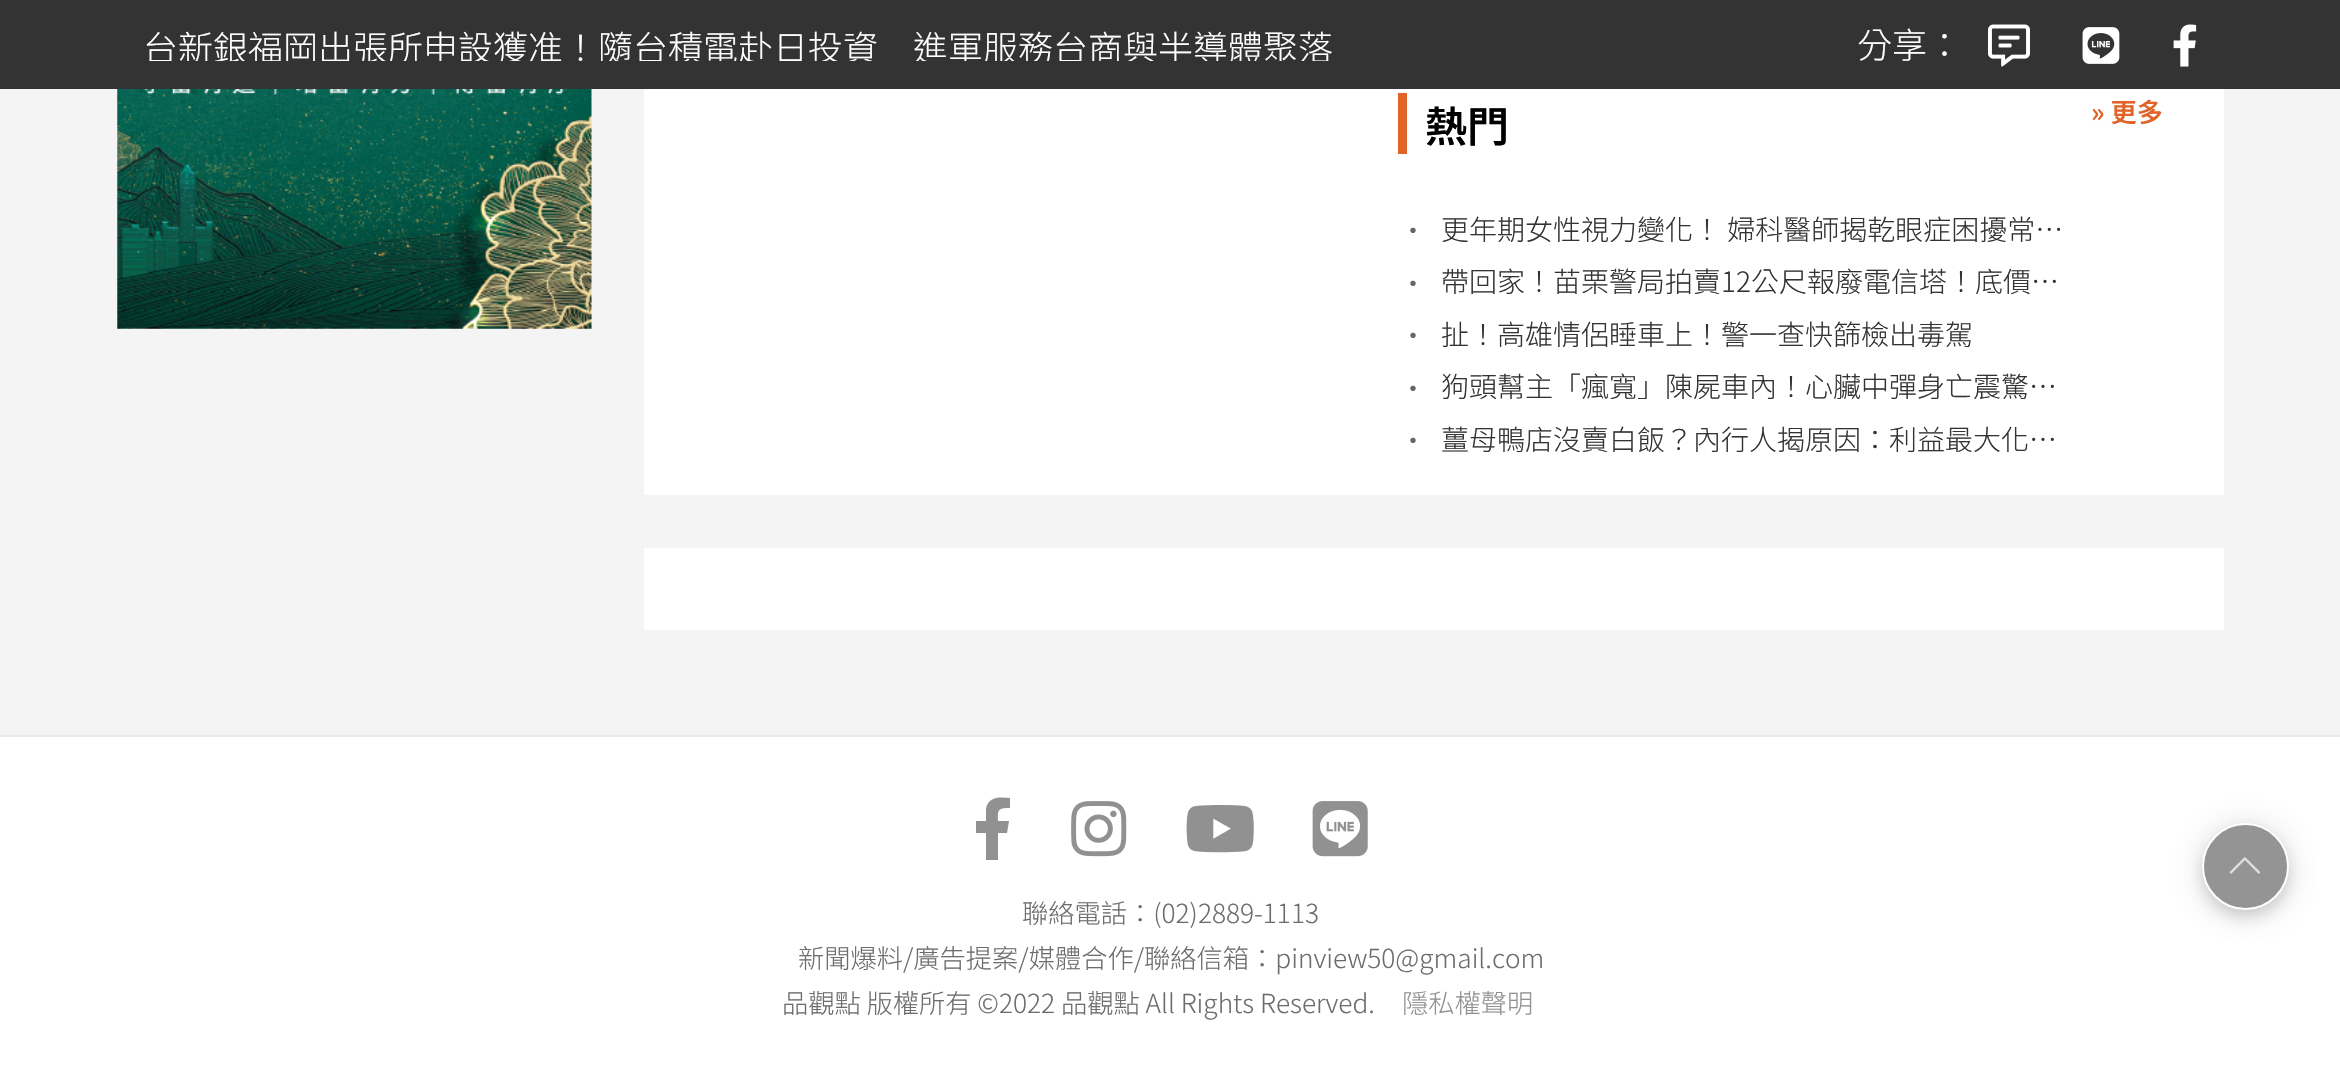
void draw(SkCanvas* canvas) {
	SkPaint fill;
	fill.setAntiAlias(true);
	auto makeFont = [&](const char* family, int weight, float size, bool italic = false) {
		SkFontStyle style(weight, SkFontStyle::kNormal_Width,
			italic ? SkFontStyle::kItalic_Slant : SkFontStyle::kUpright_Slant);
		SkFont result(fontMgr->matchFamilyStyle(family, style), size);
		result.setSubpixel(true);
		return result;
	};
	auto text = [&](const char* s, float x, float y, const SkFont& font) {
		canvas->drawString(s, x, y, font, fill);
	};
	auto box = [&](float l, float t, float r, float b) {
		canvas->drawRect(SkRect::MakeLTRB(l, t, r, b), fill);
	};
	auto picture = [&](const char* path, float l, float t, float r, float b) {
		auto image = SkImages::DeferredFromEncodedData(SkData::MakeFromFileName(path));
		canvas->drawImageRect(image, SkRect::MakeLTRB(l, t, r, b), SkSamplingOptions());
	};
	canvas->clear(0xFFF4F4F4);
	fill.setColor(0xFF333333);
	box(0, 0, 2340, 89);
	picture("image0.png", 1988, 24, 2030, 67);
	picture("image1.png", 2082, 27, 2120, 64);
	picture("image2.png", 2173, 24, 2197, 67);
	picture("image3.png", 117, 89, 592, 329);
	fill.setColor(0xFFFFFFFF);
	box(644, 89, 2224, 495);
	fill.setColor(0xFFE06428);
	box(1398, 93, 1407, 154);
	fill.setColor(0xFFFFFFFF);
	box(644, 548, 2224, 630);
	box(0, 737, 2340, 1085);
	fill.setColor(0xFFE9E9E9);
	box(0, 735, 2340, 737);
	fill.setColor(0xFF919191);
	canvas->drawPath(SkPathBuilder().moveTo(1007, 833).lineTo(998, 833).lineTo(998, 860).lineTo(986, 860).lineTo(986, 833).lineTo(976, 833).lineTo(976, 821).lineTo(986, 821).lineTo(986, 809).cubicTo(988, 796, 1000, 797, 1010, 798).lineTo(1010, 808).cubicTo(997, 808, 998, 810, 998, 821).lineTo(1009, 821).close().detach(), fill);
	picture("image4.png", 1071, 801, 1127, 857);
	picture("image5.png", 1186, 805, 1254, 853);
	picture("image6.png", 1312, 801, 1368, 857);
	fill.setColor(0x304D4D4D);
	fill.setMaskFilter(SkMaskFilter::MakeBlur(kNormal_SkBlurStyle, 17.5f));
	canvas->drawRoundRect(SkRect::MakeLTRB(2202, 826, 2289, 914), 43.5f, 43.5f, fill);
	fill.setMaskFilter(nullptr);
	fill.setColor(0x334D4D4D);
	fill.setMaskFilter(SkMaskFilter::MakeBlur(kNormal_SkBlurStyle, 7));
	canvas->drawRoundRect(SkRect::MakeLTRB(2202, 830, 2289, 917), 43.5f, 43.5f, fill);
	fill.setMaskFilter(nullptr);
	fill.setColor(0xFF949494);
	canvas->drawCircle(2245.5f, 866.5f, 42.5f, fill);
	fill.setStyle(SkPaint::kStroke_Style);
	fill.setStrokeWidth(2);
	fill.setColor(0xFFFFFFFF);
	canvas->drawCircle(2245.5f, 866.5f, 42.5f, fill);
	picture("image7.png", 2229, 857, 2261, 874);
	canvas->save();
	canvas->clipRect(SkRect::MakeLTRB(117, 0, 1593, 61));
	auto font1 = makeFont("Noto Sans TC", 300, 35);
	fill.setStyle(SkPaint::kFill_Style);
	text("台新銀福岡出張所申設獲准！隨台積電赴日投資　進軍服務台商與半導體聚落", 143, 61, font1);
	canvas->restore();
	text("分享：", 1857, 58, font1);
	auto font2 = makeFont("Noto Sans TC", 600, 42);
	fill.setColor(0xFF000000);
	text("熱門", 1425, 142, font2);
	auto font3 = makeFont("Noto Sans TC", 600, 26.25f);
	fill.setColor(0xFFE06428);
	text("» 更多", 2091, 122, font3);
	auto font4 = makeFont("Noto Sans TC", 300, 28);
	fill.setColor(0xFF666666);
	text("•", 1399, 241, font4);
	canvas->save();
	canvas->clipRect(SkRect::MakeLTRB(1440, 215, 2067, 242));
	fill.setColor(0xFF333333);
	text("更年期女性視力變化！ 婦科醫師揭乾眼症困擾常…", 1441, 240, font4);
	canvas->restore();
	fill.setColor(0xFF666666);
	text("•", 1399, 294, font4);
	canvas->save();
	canvas->clipRect(SkRect::MakeLTRB(1440, 268, 2067, 294));
	fill.setColor(0xFF333333);
	text("帶回家！苗栗警局拍賣12公尺報廢電信塔！底價…", 1441, 292, font4);
	canvas->restore();
	fill.setColor(0xFF666666);
	text("•", 1399, 346, font4);
	canvas->save();
	canvas->clipRect(SkRect::MakeLTRB(1440, 320, 1972, 347));
	fill.setColor(0xFF333333);
	text("扯！高雄情侶睡車上！警一查快篩檢出毒駕", 1441, 345, font4);
	canvas->restore();
	fill.setColor(0xFF666666);
	text("•", 1399, 399, font4);
	canvas->save();
	canvas->clipRect(SkRect::MakeLTRB(1440, 373, 2067, 399));
	fill.setColor(0xFF333333);
	text("狗頭幫主「瘋寬」陳屍車內！心臟中彈身亡震驚…", 1441, 397, font4);
	canvas->restore();
	fill.setColor(0xFF666666);
	text("•", 1399, 451, font4);
	canvas->save();
	canvas->clipRect(SkRect::MakeLTRB(1440, 425, 2067, 452));
	fill.setColor(0xFF333333);
	text("薑母鴨店沒賣白飯？內行人揭原因：利益最大化…", 1441, 450, font4);
	canvas->restore();
	auto font5 = makeFont("Noto Sans TC", 300, 26.25f);
	fill.setColor(0xFF6C6C6C);
	text("聯絡電話：(02)2889-1113", 1022, 923, font5);
	text("新聞爆料/廣告提案/媒體合作/聯絡信箱：pinview50@gmail.com", 798, 968, font5);
	text("品觀點 版權所有 ©2022 品觀點 All Rights Reserved.", 782, 1013, font5);
	fill.setColor(0xFF919191);
	text("隱私權聲明", 1402, 1013, font5);
}
